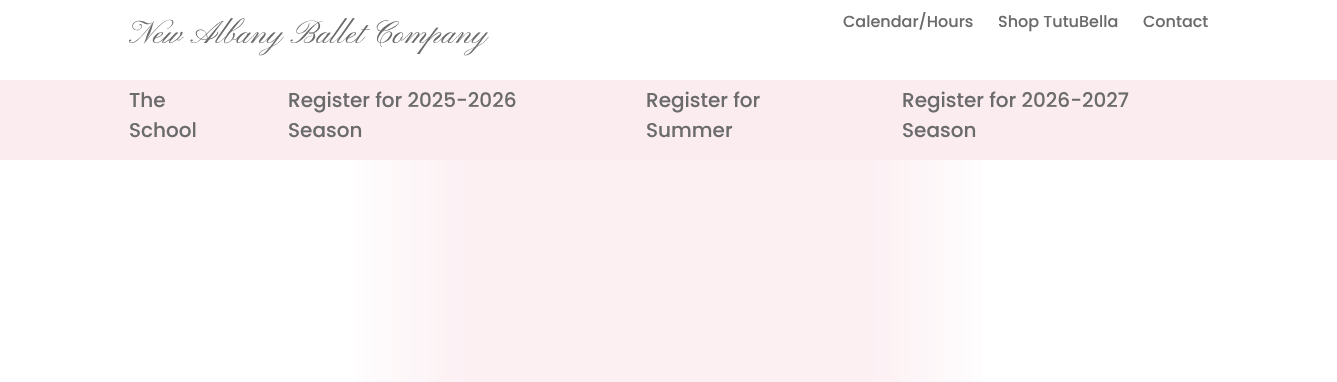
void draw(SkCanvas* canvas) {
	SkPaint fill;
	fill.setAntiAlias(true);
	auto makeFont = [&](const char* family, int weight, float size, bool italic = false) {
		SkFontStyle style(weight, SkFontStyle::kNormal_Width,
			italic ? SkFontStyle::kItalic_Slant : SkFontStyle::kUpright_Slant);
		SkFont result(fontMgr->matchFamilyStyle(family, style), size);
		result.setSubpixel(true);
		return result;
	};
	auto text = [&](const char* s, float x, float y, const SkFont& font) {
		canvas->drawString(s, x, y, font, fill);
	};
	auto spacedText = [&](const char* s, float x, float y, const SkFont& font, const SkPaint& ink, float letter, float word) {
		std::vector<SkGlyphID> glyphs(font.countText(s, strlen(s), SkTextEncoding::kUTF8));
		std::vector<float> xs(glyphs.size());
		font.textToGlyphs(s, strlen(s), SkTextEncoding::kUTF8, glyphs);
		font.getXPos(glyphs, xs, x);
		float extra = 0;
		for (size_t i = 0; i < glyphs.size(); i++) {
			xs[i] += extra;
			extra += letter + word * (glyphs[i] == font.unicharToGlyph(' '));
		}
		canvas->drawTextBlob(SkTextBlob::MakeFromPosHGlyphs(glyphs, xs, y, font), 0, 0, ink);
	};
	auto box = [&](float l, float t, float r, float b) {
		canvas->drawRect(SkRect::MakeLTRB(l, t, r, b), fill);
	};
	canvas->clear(0xFFFFFFFF);
	fill.setColor(0xFFFBECF0);
	box(0, 80, 1337, 160);
	{
		const SkColor colors[] = {0xFFFFFFFF, 0xFFFCF0F3, 0xFFFCF0F3, 0xFFFFFFFF};
		const float stops[] = {0, 0.2f, 0.8f, 1};
		const SkPoint ends[] = {{334, 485}, {1003, 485}};
		fill.setShader(SkGradientShader::MakeLinear(ends, colors, stops, 4, SkTileMode::kClamp));
		fill.setAlpha(255);
	}
	box(356, 160, 981, 382);
	auto font1 = makeFont("Pinyon Script", 400, 32);
	fill.setShader(nullptr);
	fill.setColor(0xFF6B6B6B);
	spacedText("New Albany Ballet Company", 129, 43, font1, fill, 0.5f, 0);
	auto font2 = makeFont("Poppins", 500, 16);
	text("Calendar/Hours", 843, 27, font2);
	text("Shop TutuBella", 998, 27, font2);
	text("Contact", 1143, 27, font2);
	auto font3 = makeFont("Poppins", 500, 20);
	text("The", 129, 107, font3);
	text("School", 129, 137, font3);
	text("Register for 2025-2026", 288, 107, font3);
	text("Season", 288, 137, font3);
	text("Register for", 646, 107, font3);
	text("Summer", 646, 137, font3);
	text("Register for 2026-2027", 902, 107, font3);
	text("Season", 902, 137, font3);
}
